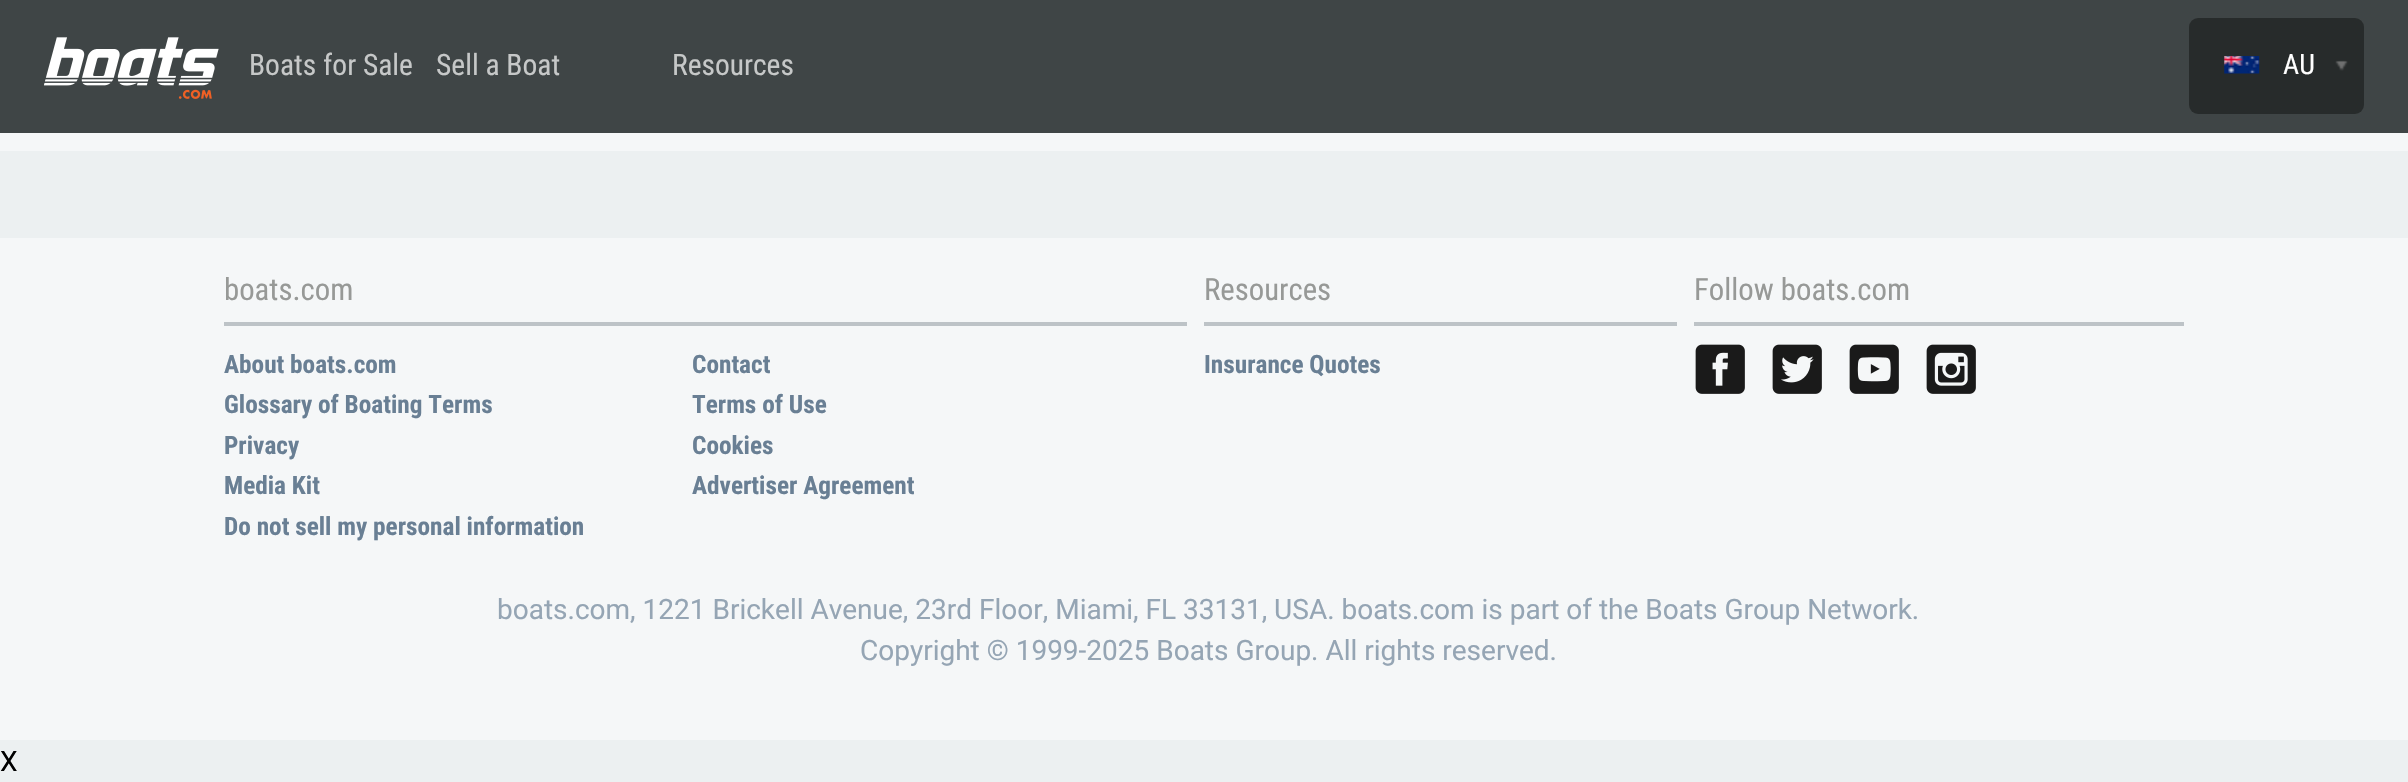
void draw(SkCanvas* canvas) {
	SkPaint fill;
	fill.setAntiAlias(true);
	auto makeFont = [&](const char* family, int weight, float size, bool italic = false) {
		SkFontStyle style(weight, SkFontStyle::kNormal_Width,
			italic ? SkFontStyle::kItalic_Slant : SkFontStyle::kUpright_Slant);
		SkFont result(fontMgr->matchFamilyStyle(family, style), size);
		result.setSubpixel(true);
		return result;
	};
	auto text = [&](const char* s, float x, float y, const SkFont& font) {
		canvas->drawString(s, x, y, font, fill);
	};
	auto box = [&](float l, float t, float r, float b) {
		canvas->drawRect(SkRect::MakeLTRB(l, t, r, b), fill);
	};
	auto roundBox = [&](float l, float t, float r, float b, float radius) {
		canvas->drawRoundRect(SkRect::MakeLTRB(l, t, r, b), radius, radius, fill);
	};
	auto picture = [&](const char* path, float l, float t, float r, float b) {
		auto image = SkImages::DeferredFromEncodedData(SkData::MakeFromFileName(path));
		canvas->drawImageRect(image, SkRect::MakeLTRB(l, t, r, b), SkSamplingOptions());
	};
	canvas->clear(0xFFECF0F1);
	fill.setColor(0xFF3F4546);
	box(0, 0, 2408, 133);
	picture("image0.png", 44, 37, 219, 99);
	fill.setColor(0xFF272B2B);
	roundBox(2189, 18, 2364, 114, 9);
	picture("image1.png", 2224, 56, 2260, 74);
	picture("image2.png", 2335, 60, 2348, 71);
	fill.setColor(0xFFF5F7F8);
	box(0, 133, 2408, 151);
	box(0, 238, 2408, 740);
	fill.setColor(0xFFBDC3C7);
	box(224, 322, 1187, 326);
	box(1204, 322, 1677, 326);
	box(1694, 322, 2184, 326);
	picture("image3.png", 1695, 344, 1745, 394);
	picture("image4.png", 1772, 344, 1822, 394);
	picture("image5.png", 1849, 344, 1899, 394);
	picture("image6.png", 1926, 344, 1976, 394);
	auto font1 = makeFont("Roboto Condensed", 400, 29.5f);
	fill.setColor(0xFFC6C8C8);
	text("Boats for Sale", 249, 75, font1);
	text("Sell a Boat", 436, 75, font1);
	text("Resources", 672, 75, font1);
	auto font2 = makeFont("Roboto Condensed", 400, 28);
	fill.setColor(0xFFFFFFFF);
	text("AU", 2283, 74, font2);
	auto font3 = makeFont("Roboto Condensed", 400, 30.75f);
	fill.setColor(0xFF979997);
	text("boats.com", 224, 300, font3);
	auto font4 = makeFont("Roboto Condensed", 700, 25.25f);
	fill.setColor(0xFF697F94);
	text("About boats.com", 224, 373, font4);
	text("Contact", 692, 373, font4);
	text("Glossary of Boating Terms", 224, 413, font4);
	text("Terms of Use", 692, 413, font4);
	text("Privacy", 224, 454, font4);
	text("Cookies", 692, 454, font4);
	text("Media Kit", 224, 494, font4);
	text("Advertiser Agreement", 692, 494, font4);
	text("Do not sell my personal information", 224, 535, font4);
	fill.setColor(0xFF979997);
	text("Resources", 1204, 300, font3);
	fill.setColor(0xFF697F94);
	text("Insurance Quotes", 1204, 373, font4);
	fill.setColor(0xFF979997);
	text("Follow boats.com", 1694, 300, font3);
	auto font5 = makeFont("Roboto", 400, 28);
	fill.setColor(0xFF95A5B4);
	text("boats.com, 1221 Brickell Avenue, 23rd Floor, Miami, FL 33131, USA. boats.com is part of the Boats Group Network.", 497, 619, font5);
	text("Copyright © 1999-2025 Boats Group. All rights reserved.", 860, 660, font5);
	fill.setColor(0xFF000000);
	text("X", 0, 771, font5);
}
